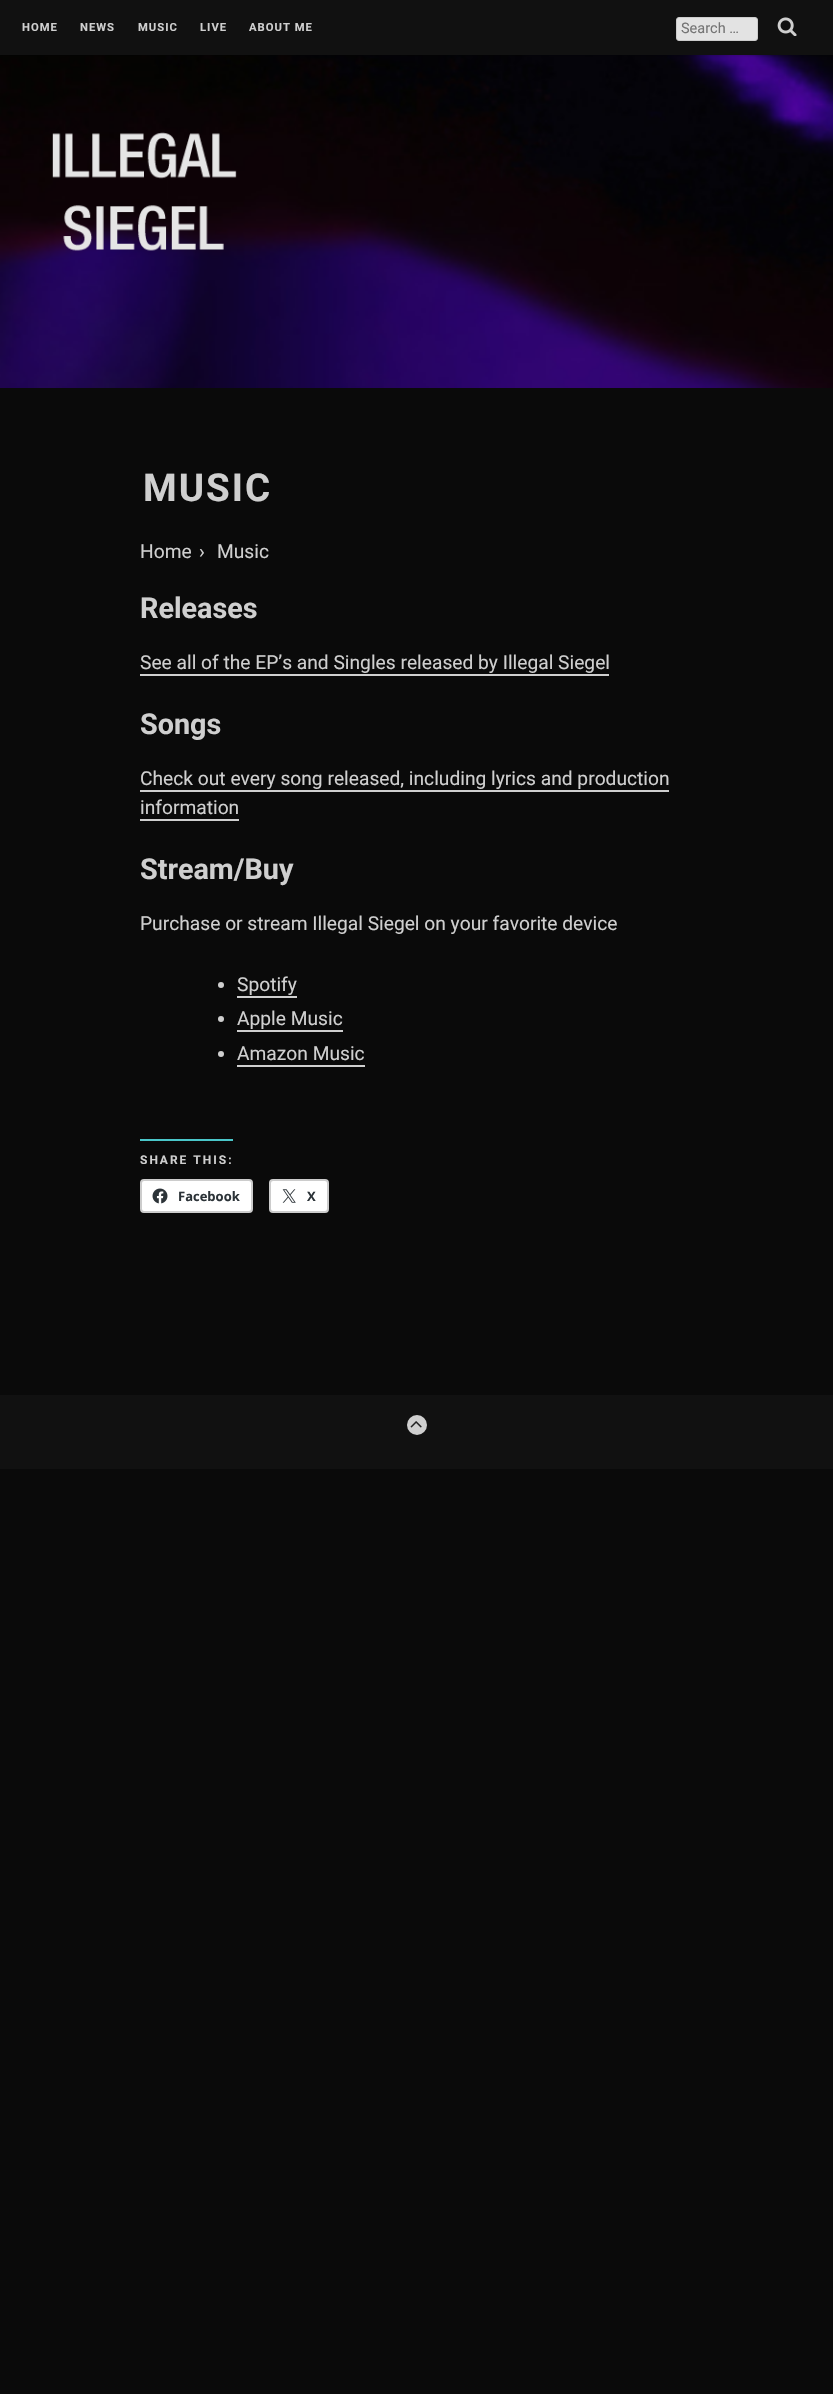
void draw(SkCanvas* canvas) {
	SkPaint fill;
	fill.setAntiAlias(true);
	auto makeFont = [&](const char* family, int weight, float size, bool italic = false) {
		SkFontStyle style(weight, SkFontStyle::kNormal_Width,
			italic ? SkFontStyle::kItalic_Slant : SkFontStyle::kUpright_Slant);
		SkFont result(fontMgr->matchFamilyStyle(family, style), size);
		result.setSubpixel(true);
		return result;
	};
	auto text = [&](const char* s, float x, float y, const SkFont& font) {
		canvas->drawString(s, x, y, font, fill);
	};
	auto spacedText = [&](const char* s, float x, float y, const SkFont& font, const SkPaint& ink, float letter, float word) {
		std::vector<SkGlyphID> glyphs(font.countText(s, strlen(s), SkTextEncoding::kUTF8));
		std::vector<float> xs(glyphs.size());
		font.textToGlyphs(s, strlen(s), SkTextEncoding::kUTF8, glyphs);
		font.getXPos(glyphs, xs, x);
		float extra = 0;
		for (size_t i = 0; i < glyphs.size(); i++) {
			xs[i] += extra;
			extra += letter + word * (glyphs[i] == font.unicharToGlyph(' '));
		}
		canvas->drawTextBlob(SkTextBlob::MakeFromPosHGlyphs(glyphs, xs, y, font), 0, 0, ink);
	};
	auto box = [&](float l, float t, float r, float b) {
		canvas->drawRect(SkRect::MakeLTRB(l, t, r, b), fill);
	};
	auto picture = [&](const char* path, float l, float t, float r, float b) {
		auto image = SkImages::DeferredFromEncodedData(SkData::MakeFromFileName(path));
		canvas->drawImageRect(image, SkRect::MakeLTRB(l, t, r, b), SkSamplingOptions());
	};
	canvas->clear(0xFF0A0A0A);
	picture("image1.png", 0, 55, 833, 388);
	fill.setColor(0x33000000);
	fill.setMaskFilter(SkMaskFilter::MakeBlur(kNormal_SkBlurStyle, 1));
	canvas->drawRect(SkRect::MakeLTRB(0, 1, 833, 56), fill);
	fill.setMaskFilter(nullptr);
	fill.setColor(0xFF111111);
	box(0, 0, 833, 55);
	fill.setColor(0xFFE3E3E3);
	canvas->drawRoundRect(SkRect::MakeLTRB(676.5f, 17.5f, 757.5f, 40.5f), 2.5f, 2.5f, fill);
	fill.setStyle(SkPaint::kStroke_Style);
	fill.setStrokeWidth(1);
	fill.setColor(0xFFCCCCCC);
	canvas->drawRoundRect(SkRect::MakeLTRB(676.5f, 17.5f, 757.5f, 40.5f), 2.5f, 2.5f, fill);
	picture("image0.png", 777, 17, 797, 36);
	picture("image2.png", 52, 132, 237, 251);
	fill.setStyle(SkPaint::kFill_Style);
	fill.setColor(0xFFCFCFCF);
	box(140, 674, 609, 676);
	box(140, 790, 669, 792);
	box(140, 819, 239, 821);
	canvas->drawCircle(221, 985, 3, fill);
	box(237, 996, 297, 998);
	canvas->drawCircle(221, 1019, 3, fill);
	box(237, 1030, 343, 1032);
	canvas->drawCircle(221, 1054, 3, fill);
	box(237, 1065, 365, 1067);
	fill.setColor(0xFF4AC6C9);
	box(140, 1139, 233, 1141);
	fill.setColor(0xFFFFFFFF);
	canvas->drawRoundRect(SkRect::MakeLTRB(141, 1180, 252, 1212), 3, 3, fill);
	fill.setStyle(SkPaint::kStroke_Style);
	fill.setStrokeWidth(2);
	fill.setColor(0xFFCCCCCC);
	canvas->drawRoundRect(SkRect::MakeLTRB(141, 1180, 252, 1212), 3, 3, fill);
	picture("image3.png", 152, 1188, 168, 1204);
	fill.setStyle(SkPaint::kFill_Style);
	fill.setColor(0xFFFFFFFF);
	canvas->drawRoundRect(SkRect::MakeLTRB(270, 1180, 328, 1212), 3, 3, fill);
	fill.setStyle(SkPaint::kStroke_Style);
	fill.setColor(0xFFCCCCCC);
	canvas->drawRoundRect(SkRect::MakeLTRB(270, 1180, 328, 1212), 3, 3, fill);
	picture("image4.png", 282, 1189, 296, 1203);
	fill.setStyle(SkPaint::kFill_Style);
	fill.setColor(0xFF111111);
	box(0, 1395, 833, 1469);
	fill.setColor(0xFFCFCFCF);
	canvas->drawCircle(417, 1425, 10, fill);
	picture("image5.png", 410, 1421, 422, 1428);
	auto font1 = makeFont("Roboto", 700, 11.25f);
	spacedText("HOME", 22, 31, font1, fill, 1, 0);
	spacedText("NEWS", 80, 31, font1, fill, 1, 0);
	spacedText("MUSIC", 138, 31, font1, fill, 1, 0);
	spacedText("LIVE", 200, 31, font1, fill, 1, 0);
	spacedText("ABOUT ME", 249, 31, font1, fill, 1, 0);
	auto font2 = makeFont("Roboto", 400, 14.5f);
	fill.setColor(0xFF757575);
	text("Search …", 681, 33, font2);
	auto font3 = makeFont("Roboto", 700, 38.5f);
	fill.setColor(0xFFCFCFCF);
	spacedText("MUSIC", 143, 501, font3, fill, 2, 0);
	auto font4 = makeFont("Roboto", 400, 19.2f);
	text("Home", 140, 558, font4);
	text("›", 199, 558, font4);
	text("Music", 217, 558, font4);
	auto font5 = makeFont("Roboto", 700, 28.75f);
	text("Releases", 140, 618, font5);
	text("See all of the EP’s and Singles released by Illegal Siegel", 140, 669, font4);
	text("Songs", 140, 734, font5);
	text("Check out every song released, including lyrics and production", 140, 785, font4);
	text("information", 140, 814, font4);
	text("Stream/Buy", 140, 879, font5);
	text("Purchase or stream Illegal Siegel on your favorite device", 140, 930, font4);
	text("Spotify", 237, 991, font4);
	text("Apple Music", 237, 1025, font4);
	text("Amazon Music", 237, 1060, font4);
	auto font6 = makeFont("Roboto", 700, 12);
	spacedText("SHARE THIS:", 140, 1164, font6, fill, 2, 0);
	auto font7 = makeFont("Open Sans", 700, 13);
	fill.setColor(0xFF2C3338);
	text("Facebook", 178, 1201, font7);
	text("X", 307, 1201, font7);
}
